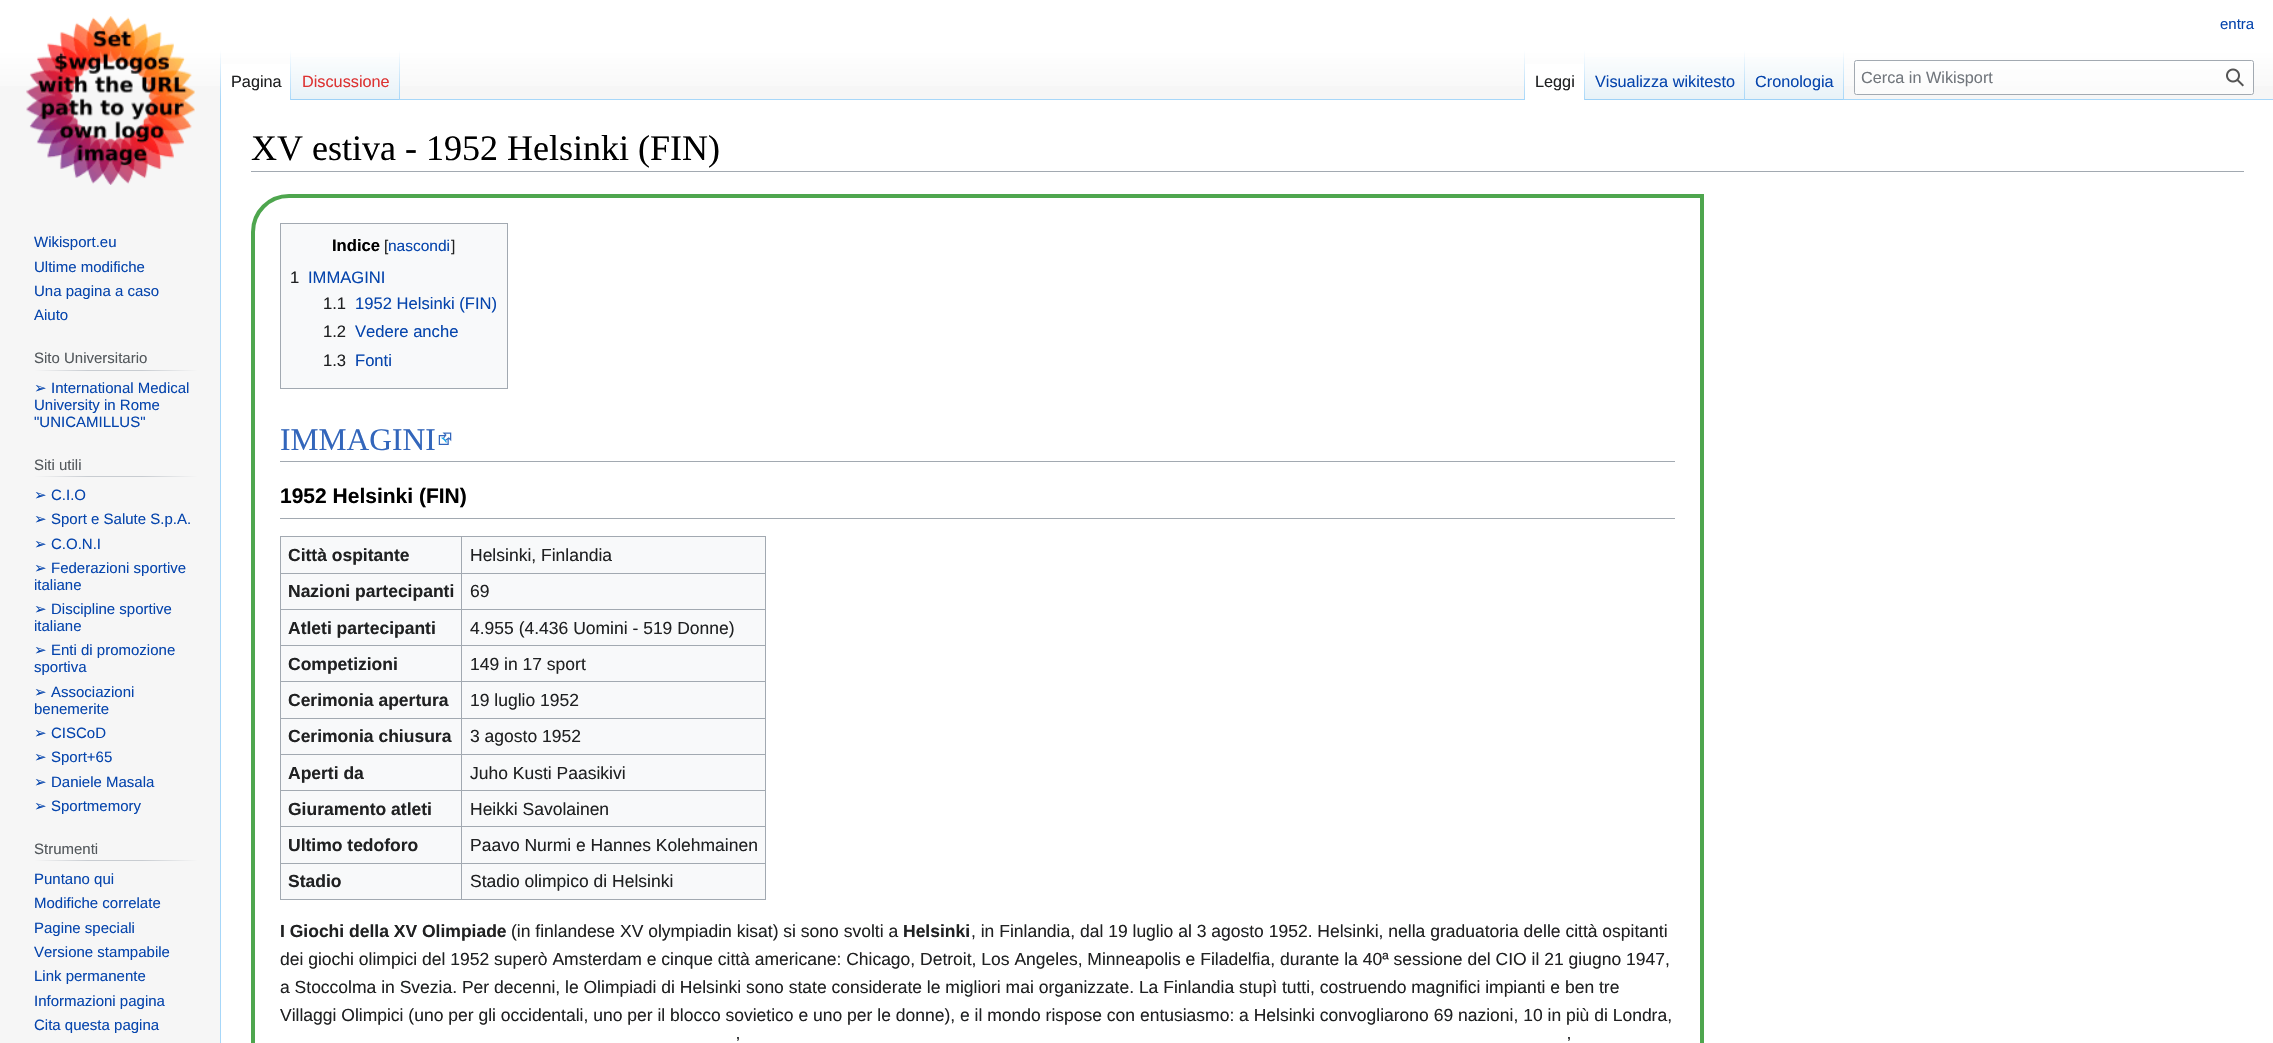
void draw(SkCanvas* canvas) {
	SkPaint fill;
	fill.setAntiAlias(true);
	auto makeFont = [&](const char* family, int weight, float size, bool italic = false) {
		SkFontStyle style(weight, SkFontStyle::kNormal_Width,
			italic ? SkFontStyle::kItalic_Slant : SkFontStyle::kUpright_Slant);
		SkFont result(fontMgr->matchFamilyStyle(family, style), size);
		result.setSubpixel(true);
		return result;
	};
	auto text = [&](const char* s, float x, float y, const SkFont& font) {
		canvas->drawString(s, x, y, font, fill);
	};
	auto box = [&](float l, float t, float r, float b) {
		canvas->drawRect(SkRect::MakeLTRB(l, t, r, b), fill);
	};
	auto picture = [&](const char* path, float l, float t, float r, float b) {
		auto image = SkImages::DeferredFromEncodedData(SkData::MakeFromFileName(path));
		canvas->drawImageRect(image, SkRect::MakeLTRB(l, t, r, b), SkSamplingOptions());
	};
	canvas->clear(0xFFF6F6F6);
	{
		const SkColor colors[] = {0xFFFFFFFF, 0xFFF6F6F6};
		const float stops[] = {0.5f, 1};
		const SkPoint ends[] = {{1137, 0}, {1137, 100}};
		fill.setShader(SkGradientShader::MakeLinear(ends, colors, stops, 2, SkTileMode::kClamp));
		fill.setAlpha(255);
	}
	box(0, 0, 2273, 86);
	fill.setShader(nullptr);
	fill.setColor(0xFFA7D7F9);
	box(220, 99, 221, 1043);
	{
		const SkColor colors[] = {0x00A7D7F9, 0xFFA7D7F9};
		const float stops[] = {0, 1};
		const SkPoint ends[] = {{221, 50}, {221, 100}};
		fill.setShader(SkGradientShader::MakeLinear(ends, colors, stops, 2, SkTileMode::kClamp));
		fill.setAlpha(255);
	}
	box(220, 50, 221, 100);
	fill.setShader(nullptr);
	fill.setColor(0xFFFFFFFF);
	box(221, 64, 290, 100);
	{
		const SkColor colors[] = {0xFFFFFFFF, 0xFFA7D7F9};
		const float stops[] = {0, 1};
		const SkPoint ends[] = {{291, 50}, {291, 100}};
		fill.setShader(SkGradientShader::MakeLinear(ends, colors, stops, 2, SkTileMode::kClamp));
		fill.setAlpha(255);
	}
	box(290, 50, 291, 100);
	{
		const SkColor colors[] = {0xFF77C1F6, 0xFFE8F2F8, 0xFFFFFFFF};
		const float stops[] = {0, 0.03f, 1};
		const SkPoint ends[] = {{346, 100}, {346, 50}};
		fill.setShader(SkGradientShader::MakeLinear(ends, colors, stops, 3, SkTileMode::kClamp));
		fill.setAlpha(255);
	}
	box(291, 57, 400, 100);
	{
		const SkColor colors[] = {0x00A7D7F9, 0xFFA7D7F9};
		const float stops[] = {0, 1};
		const SkPoint ends[] = {{399, 50}, {399, 100}};
		fill.setShader(SkGradientShader::MakeLinear(ends, colors, stops, 2, SkTileMode::kClamp));
		fill.setAlpha(255);
	}
	box(399, 50, 400, 100);
	fill.setShader(nullptr);
	fill.setColor(0xFFA7D7F9);
	box(400, 99, 2273, 100);
	{
		const SkColor colors[] = {0x00A7D7F9, 0xFFA7D7F9};
		const float stops[] = {0, 1};
		const SkPoint ends[] = {{1524, 50}, {1524, 100}};
		fill.setShader(SkGradientShader::MakeLinear(ends, colors, stops, 2, SkTileMode::kClamp));
		fill.setAlpha(255);
	}
	box(1524, 50, 1525, 100);
	fill.setShader(nullptr);
	fill.setColor(0xFFFFFFFF);
	box(1525, 64, 1584, 100);
	{
		const SkColor colors[] = {0xFFFFFFFF, 0xFFA7D7F9};
		const float stops[] = {0, 1};
		const SkPoint ends[] = {{1584, 50}, {1584, 100}};
		fill.setShader(SkGradientShader::MakeLinear(ends, colors, stops, 2, SkTileMode::kClamp));
		fill.setAlpha(255);
	}
	box(1584, 50, 1585, 100);
	{
		const SkColor colors[] = {0xFF77C1F6, 0xFFE8F2F8, 0xFFFFFFFF};
		const float stops[] = {0, 0.03f, 1};
		const SkPoint ends[] = {{1665, 100}, {1665, 50}};
		fill.setShader(SkGradientShader::MakeLinear(ends, colors, stops, 3, SkTileMode::kClamp));
		fill.setAlpha(255);
	}
	box(1585, 57, 1745, 100);
	{
		const SkColor colors[] = {0x00A7D7F9, 0xFFA7D7F9};
		const float stops[] = {0, 1};
		const SkPoint ends[] = {{1744, 50}, {1744, 100}};
		fill.setShader(SkGradientShader::MakeLinear(ends, colors, stops, 2, SkTileMode::kClamp));
		fill.setAlpha(255);
	}
	box(1744, 50, 1745, 100);
	{
		const SkColor colors[] = {0xFF77C1F6, 0xFFE8F2F8, 0xFFFFFFFF};
		const float stops[] = {0, 0.03f, 1};
		const SkPoint ends[] = {{1794, 100}, {1794, 50}};
		fill.setShader(SkGradientShader::MakeLinear(ends, colors, stops, 3, SkTileMode::kClamp));
		fill.setAlpha(255);
	}
	box(1745, 57, 1844, 100);
	{
		const SkColor colors[] = {0x00A7D7F9, 0xFFA7D7F9};
		const float stops[] = {0, 1};
		const SkPoint ends[] = {{1843, 50}, {1843, 100}};
		fill.setShader(SkGradientShader::MakeLinear(ends, colors, stops, 2, SkTileMode::kClamp));
		fill.setAlpha(255);
	}
	box(1843, 50, 1844, 100);
	fill.setShader(nullptr);
	fill.setColor(0x80FFFFFF);
	canvas->drawRoundRect(SkRect::MakeLTRB(1854.5f, 60.5f, 2253.5f, 94.5f), 2, 2, fill);
	fill.setStyle(SkPaint::kStroke_Style);
	fill.setStrokeWidth(1);
	fill.setColor(0xFFA2A9B1);
	canvas->drawRoundRect(SkRect::MakeLTRB(1854.5f, 60.5f, 2253.5f, 94.5f), 2, 2, fill);
	picture("image0.png", 2226, 68, 2244, 87);
	picture("image1.png", 26, 16, 195, 185);
	fill.setStyle(SkPaint::kFill_Style);
	{
		const SkColor colors[] = {0xFFF6F6F6, 0xFFC8CCD1, 0xFFC8CCD1, 0xFFF6F6F6};
		const float stops[] = {0, 0.33f, 0.66f, 1};
		const SkPoint ends[] = {{34, 371}, {198, 371}};
		fill.setShader(SkGradientShader::MakeLinear(ends, colors, stops, 4, SkTileMode::kClamp));
		fill.setAlpha(255);
	}
	box(34, 370, 198, 371);
	{
		const SkColor colors[] = {0xFFF6F6F6, 0xFFC8CCD1, 0xFFC8CCD1, 0xFFF6F6F6};
		const float stops[] = {0, 0.33f, 0.66f, 1};
		const SkPoint ends[] = {{34, 477}, {198, 477}};
		fill.setShader(SkGradientShader::MakeLinear(ends, colors, stops, 4, SkTileMode::kClamp));
		fill.setAlpha(255);
	}
	box(34, 476, 198, 477);
	{
		const SkColor colors[] = {0xFFF6F6F6, 0xFFC8CCD1, 0xFFC8CCD1, 0xFFF6F6F6};
		const float stops[] = {0, 0.33f, 0.66f, 1};
		const SkPoint ends[] = {{34, 861}, {198, 861}};
		fill.setShader(SkGradientShader::MakeLinear(ends, colors, stops, 4, SkTileMode::kClamp));
		fill.setAlpha(255);
	}
	box(34, 860, 198, 861);
	fill.setShader(nullptr);
	fill.setColor(0xFFFFFFFF);
	box(221, 100, 2273, 1043);
	fill.setColor(0xFFA2A9B1);
	box(251, 171, 2244, 172);
	fill.setStyle(SkPaint::kStroke_Style);
	fill.setStrokeWidth(4);
	fill.setColor(0xFF4EA64E);
	canvas->drawPath(SkPathBuilder().moveTo(289, 196).lineTo(1702, 196).lineTo(1702, 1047).cubicTo(1702, 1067, 1686, 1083, 1666, 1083).lineTo(253, 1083).lineTo(253, 232).cubicTo(253, 212, 269, 196, 289, 196).close().detach(), fill);
	fill.setStyle(SkPaint::kFill_Style);
	fill.setColor(0xFFF8F9FA);
	canvas->drawRect(SkRect::MakeLTRB(280.5f, 223.5f, 507.5f, 388.5f), fill);
	fill.setStyle(SkPaint::kStroke_Style);
	fill.setStrokeWidth(1);
	fill.setColor(0xFFA2A9B1);
	canvas->drawRect(SkRect::MakeLTRB(280.5f, 223.5f, 507.5f, 388.5f), fill);
	fill.setStyle(SkPaint::kFill_Style);
	box(280, 461, 1675, 462);
	picture("image2.png", 438, 432, 452, 445);
	box(280, 518, 1675, 519);
	fill.setColor(0xFFF8F9FA);
	box(281, 537, 765, 899);
	fill.setColor(0xFFA2A9B1);
	box(280, 536, 766, 537);
	box(765, 536, 766, 900);
	box(280, 899, 766, 900);
	box(280, 536, 281, 900);
	box(461, 573, 766, 574);
	box(461, 609, 766, 610);
	box(461, 645, 766, 646);
	box(461, 681, 766, 682);
	box(461, 718, 766, 719);
	box(461, 754, 766, 755);
	box(461, 790, 766, 791);
	box(461, 826, 766, 827);
	box(461, 863, 766, 864);
	box(461, 863, 462, 900);
	box(280, 863, 463, 864);
	box(461, 826, 462, 864);
	box(280, 826, 463, 827);
	box(461, 790, 462, 828);
	box(280, 790, 463, 791);
	box(461, 754, 462, 791);
	box(280, 754, 463, 755);
	box(461, 718, 462, 755);
	box(280, 718, 463, 719);
	box(461, 681, 462, 719);
	box(280, 681, 463, 682);
	box(461, 645, 462, 683);
	box(280, 645, 463, 646);
	box(461, 609, 462, 646);
	box(280, 609, 463, 610);
	box(461, 573, 462, 610);
	box(280, 573, 463, 574);
	box(461, 536, 462, 574);
	auto font1 = makeFont("Liberation Sans", 400, 15);
	fill.setColor(0xFF0645AD);
	text("entra", 2220, 29, font1);
	auto font2 = makeFont("Liberation Sans", 400, 16.25f);
	fill.setColor(0xFF202122);
	text("Pagina", 231, 87, font2);
	fill.setColor(0xFFDD3333);
	text("Discussione", 302, 87, font2);
	fill.setColor(0xFF202122);
	text("Leggi", 1535, 87, font2);
	fill.setColor(0xFF0645AD);
	text("Visualizza wikitesto", 1595, 87, font2);
	text("Cronologia", 1755, 87, font2);
	fill.setColor(0xFF72777D);
	text("Cerca in Wikisport", 1861, 83, font2);
	fill.setColor(0xFF0645AD);
	text("Wikisport.eu", 34, 247, font1);
	text("Ultime modifiche", 34, 272, font1);
	text("Una pagina a caso", 34, 296, font1);
	text("Aiuto", 34, 320, font1);
	fill.setColor(0xFF54595D);
	text("Sito Universitario", 34, 363, font1);
	auto font3 = makeFont("DejaVu Sans", 400, 15);
	fill.setColor(0xFF0645AD);
	text("➢", 34, 393, font3);
	text("International Medical", 51, 393, font1);
	text("University in Rome", 34, 410, font1);
	text("\"UNICAMILLUS\"", 34, 427, font1);
	fill.setColor(0xFF54595D);
	text("Siti utili", 34, 470, font1);
	fill.setColor(0xFF0645AD);
	text("➢", 34, 500, font3);
	text("C.I.O", 51, 500, font1);
	text("➢", 34, 524, font3);
	text("Sport e Salute S.p.A.", 51, 524, font1);
	text("➢", 34, 549, font3);
	text("C.O.N.I", 51, 549, font1);
	text("➢", 34, 573, font3);
	text("Federazioni sportive", 51, 573, font1);
	text("italiane", 34, 590, font1);
	text("➢", 34, 614, font3);
	text("Discipline sportive", 51, 614, font1);
	text("italiane", 34, 631, font1);
	text("➢", 34, 655, font3);
	text("Enti di promozione", 51, 655, font1);
	text("sportiva", 34, 672, font1);
	text("➢", 34, 697, font3);
	text("Associazioni", 51, 697, font1);
	text("benemerite", 34, 714, font1);
	text("➢", 34, 738, font3);
	text("CISCoD", 51, 738, font1);
	text("➢", 34, 762, font3);
	text("Sport+65", 51, 762, font1);
	text("➢", 34, 787, font3);
	text("Daniele Masala", 51, 787, font1);
	text("➢", 34, 811, font3);
	text("Sportmemory", 51, 811, font1);
	fill.setColor(0xFF54595D);
	text("Strumenti", 34, 854, font1);
	fill.setColor(0xFF0645AD);
	text("Puntano qui", 34, 884, font1);
	text("Modifiche correlate", 34, 908, font1);
	text("Pagine speciali", 34, 933, font1);
	text("Versione stampabile", 34, 957, font1);
	text("Link permanente", 34, 981, font1);
	text("Informazioni pagina", 34, 1006, font1);
	text("Cita questa pagina", 34, 1030, font1);
	auto font4 = makeFont("Liberation Serif", 400, 36);
	fill.setColor(0xFF000000);
	text("XV estiva - 1952 Helsinki (FIN)", 251, 160, font4);
	auto font5 = makeFont("Liberation Sans", 700, 16.6f);
	text("Indice", 332, 251, font5);
	auto font6 = makeFont("Liberation Sans", 400, 15.5f);
	fill.setColor(0xFF202122);
	text("[", 384, 251, font6);
	fill.setColor(0xFF0645AD);
	text("nascondi", 388, 251, font6);
	fill.setColor(0xFF202122);
	text("]", 451, 251, font6);
	auto font7 = makeFont("Liberation Sans", 400, 16.6f);
	text("1", 290, 283, font7);
	fill.setColor(0xFF0645AD);
	text("IMMAGINI", 308, 283, font7);
	fill.setColor(0xFF202122);
	text("1.1", 323, 309, font7);
	fill.setColor(0xFF0645AD);
	text("1952 Helsinki (FIN)", 355, 309, font7);
	fill.setColor(0xFF202122);
	text("1.2", 323, 337, font7);
	fill.setColor(0xFF0645AD);
	text("Vedere anche", 355, 337, font7);
	fill.setColor(0xFF202122);
	text("1.3", 323, 366, font7);
	fill.setColor(0xFF0645AD);
	text("Fonti", 355, 366, font7);
	auto font8 = makeFont("Liberation Serif", 400, 31.5f);
	fill.setColor(0xFF3366BB);
	text("IMMAGINI", 280, 450, font8);
	auto font9 = makeFont("Liberation Sans", 700, 21);
	fill.setColor(0xFF000000);
	text("1952 Helsinki (FIN)", 280, 503, font9);
	auto font10 = makeFont("Liberation Sans", 700, 17.5f);
	fill.setColor(0xFF202122);
	text("Città ospitante", 288, 561, font10);
	auto font11 = makeFont("Liberation Sans", 400, 17.5f);
	text("Helsinki, Finlandia", 470, 561, font11);
	text("Nazioni partecipanti", 288, 597, font10);
	text("69", 470, 597, font11);
	text("Atleti partecipanti", 288, 634, font10);
	text("4.955 (4.436 Uomini - 519 Donne)", 470, 634, font11);
	text("Competizioni", 288, 670, font10);
	text("149 in 17 sport", 470, 670, font11);
	text("Cerimonia apertura", 288, 706, font10);
	text("19 luglio 1952", 470, 706, font11);
	text("Cerimonia chiusura", 288, 742, font10);
	text("3 agosto 1952", 470, 742, font11);
	text("Aperti da", 288, 779, font10);
	text("Juho Kusti Paasikivi", 470, 779, font11);
	text("Giuramento atleti", 288, 815, font10);
	text("Heikki Savolainen", 470, 815, font11);
	text("Ultimo tedoforo", 288, 851, font10);
	text("Paavo Nurmi e Hannes Kolehmainen", 470, 851, font11);
	text("Stadio", 288, 887, font10);
	text("Stadio olimpico di Helsinki", 470, 887, font11);
	text("I Giochi della XV Olimpiade", 280, 937, font10);
	text("(in finlandese XV olympiadin kisat) si sono svolti a", 511, 937, font11);
	text("Helsinki", 903, 937, font10);
	text(", in Finlandia, dal 19 luglio al 3 agosto 1952. Helsinki, nella graduatoria delle città ospitanti", 971, 937, font11);
	text("dei giochi olimpici del 1952 superò Amsterdam e cinque città americane: Chicago, Detroit, Los Angeles, Minneapolis e Filadelfia, durante la 40ª sessione del CIO il 21 giugno 1947,", 280, 965, font11);
	text("a Stoccolma in Svezia. Per decenni, le Olimpiadi di Helsinki sono state considerate le migliori mai organizzate. La Finlandia stupì tutti, costruendo magnifici impianti e ben tre", 280, 993, font11);
	text("Villaggi Olimpici (uno per gli occidentali, uno per il blocco sovietico e uno per le donne), e il mondo rispose con entusiasmo: a Helsinki convogliarono 69 nazioni, 10 in più di Londra,", 280, 1021, font11);
	text("’", 736, 1049, font11);
	text("’", 1567, 1049, font11);
}
